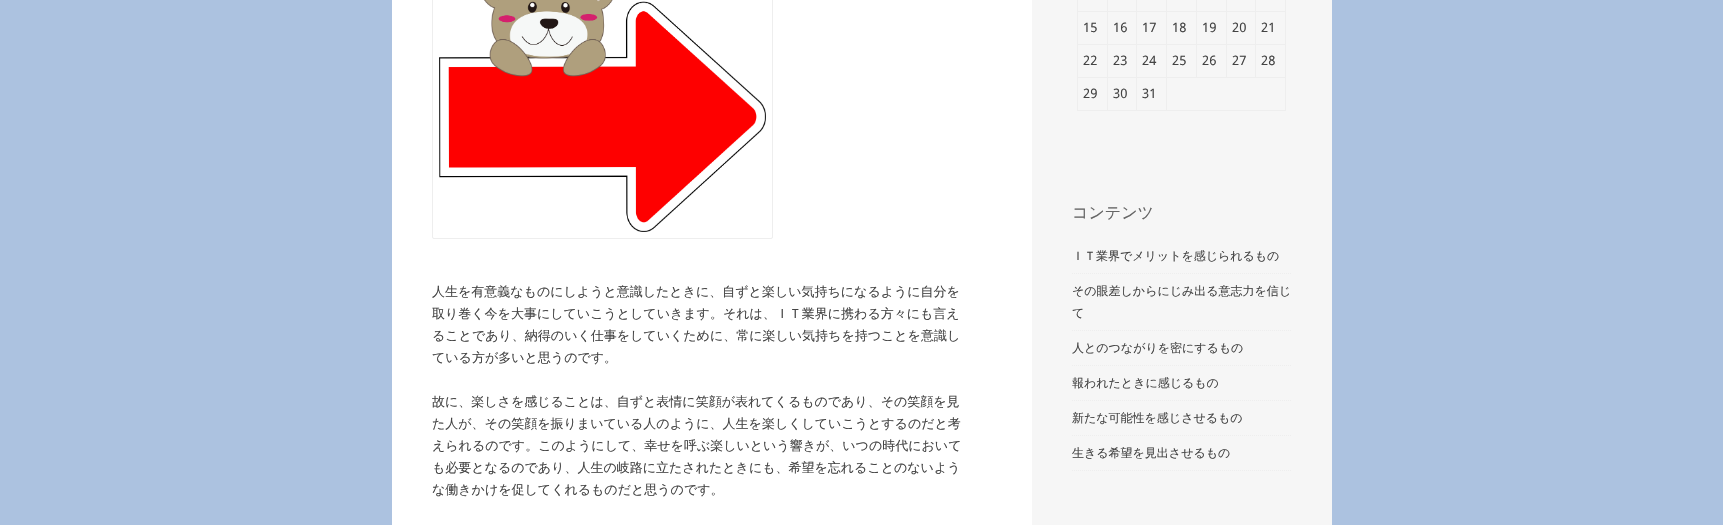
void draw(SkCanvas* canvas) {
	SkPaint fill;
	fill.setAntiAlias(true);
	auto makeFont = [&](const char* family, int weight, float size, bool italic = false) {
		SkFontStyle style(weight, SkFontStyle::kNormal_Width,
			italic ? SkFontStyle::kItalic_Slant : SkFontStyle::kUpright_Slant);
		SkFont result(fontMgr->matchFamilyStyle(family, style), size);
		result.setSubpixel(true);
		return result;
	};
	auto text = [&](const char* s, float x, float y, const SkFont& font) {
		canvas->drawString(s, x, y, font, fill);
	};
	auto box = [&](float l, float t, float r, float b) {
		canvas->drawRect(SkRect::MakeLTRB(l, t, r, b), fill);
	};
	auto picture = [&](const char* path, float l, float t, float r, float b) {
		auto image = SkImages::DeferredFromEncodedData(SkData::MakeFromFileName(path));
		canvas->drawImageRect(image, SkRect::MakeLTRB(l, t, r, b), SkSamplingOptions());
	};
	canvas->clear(0xFFACC2E0);
	fill.setColor(0xFFFFFFFF);
	box(392, 0, 1032, 525);
	fill.setStyle(SkPaint::kStroke_Style);
	fill.setStrokeWidth(1);
	fill.setColor(0xFFEEEEEE);
	canvas->drawRoundRect(SkRect::MakeLTRB(432.5f, -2.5f, 772.5f, 238.5f), 1.5f, 1.5f, fill);
	picture("image0.png", 439, 0, 766, 232);
	fill.setStyle(SkPaint::kFill_Style);
	fill.setColor(0xFFF6F6F6);
	box(1032, 0, 1332, 525);
	fill.setColor(0xFFEEEEEE);
	box(1255, 11, 1286, 12);
	box(1255, 44, 1286, 45);
	box(1166, 77, 1286, 78);
	box(1255, 44, 1256, 78);
	box(1226, 44, 1256, 45);
	box(1255, 11, 1256, 45);
	box(1226, 11, 1256, 12);
	box(1226, 44, 1227, 78);
	box(1196, 44, 1227, 45);
	box(1226, 11, 1227, 45);
	box(1196, 11, 1227, 12);
	box(1196, 44, 1197, 78);
	box(1166, 44, 1197, 45);
	box(1196, 11, 1197, 45);
	box(1166, 11, 1197, 12);
	box(1285, 77, 1286, 111);
	box(1166, 110, 1286, 111);
	box(1166, 77, 1167, 111);
	box(1136, 77, 1167, 78);
	box(1166, 44, 1167, 78);
	box(1136, 44, 1167, 45);
	box(1166, 11, 1167, 45);
	box(1136, 11, 1167, 12);
	box(1136, 110, 1167, 111);
	box(1136, 77, 1137, 111);
	box(1107, 77, 1137, 78);
	box(1136, 44, 1137, 78);
	box(1107, 44, 1137, 45);
	box(1136, 11, 1137, 45);
	box(1107, 11, 1137, 12);
	box(1107, 110, 1137, 111);
	box(1107, 77, 1108, 111);
	box(1077, 77, 1108, 78);
	box(1107, 44, 1108, 78);
	box(1077, 44, 1108, 45);
	box(1107, 11, 1108, 45);
	box(1077, 11, 1108, 12);
	box(1107, 0, 1108, 12);
	box(1136, 0, 1137, 12);
	box(1166, 0, 1167, 12);
	box(1196, 0, 1197, 12);
	box(1226, 0, 1227, 12);
	box(1255, 0, 1256, 12);
	box(1077, 110, 1108, 111);
	box(1077, 77, 1078, 111);
	box(1077, 44, 1078, 78);
	box(1077, 0, 1078, 45);
	box(1285, 44, 1286, 78);
	box(1285, 0, 1286, 45);
	fill.setStyle(SkPaint::kStroke_Style);
	fill.setPathEffect(SkDashPathEffect::Make({{1, 1}}, 0));
	canvas->drawPath(SkPathBuilder().moveTo(1072, 273.5f).lineTo(1292, 273.5f).detach(), fill);
	fill.setPathEffect(nullptr);
	fill.setPathEffect(SkDashPathEffect::Make({{1, 1}}, 0));
	canvas->drawPath(SkPathBuilder().moveTo(1072, 330.5f).lineTo(1292, 330.5f).detach(), fill);
	fill.setPathEffect(nullptr);
	fill.setPathEffect(SkDashPathEffect::Make({{1, 1}}, 0));
	canvas->drawPath(SkPathBuilder().moveTo(1072, 365.5f).lineTo(1292, 365.5f).detach(), fill);
	fill.setPathEffect(nullptr);
	fill.setPathEffect(SkDashPathEffect::Make({{1, 1}}, 0));
	canvas->drawPath(SkPathBuilder().moveTo(1072, 400.5f).lineTo(1292, 400.5f).detach(), fill);
	fill.setPathEffect(nullptr);
	fill.setPathEffect(SkDashPathEffect::Make({{1, 1}}, 0));
	canvas->drawPath(SkPathBuilder().moveTo(1072, 435.5f).lineTo(1292, 435.5f).detach(), fill);
	fill.setPathEffect(nullptr);
	fill.setPathEffect(SkDashPathEffect::Make({{1, 1}}, 0));
	canvas->drawPath(SkPathBuilder().moveTo(1072, 470.5f).lineTo(1292, 470.5f).detach(), fill);
	fill.setPathEffect(nullptr);
	auto font1 = makeFont("WenQuanYi Zen Hei", 500, 13);
	fill.setStyle(SkPaint::kFill_Style);
	fill.setColor(0xFF444444);
	text("人生を有意義なものにしようと意識したときに、自ずと楽しい気持ちになるように自分を", 432, 296, font1);
	text("取り巻く今を大事にしていこうとしていきます。それは、ＩＴ業界に携わる方々にも言え", 432, 318, font1);
	text("ることであり、納得のいく仕事をしていくために、常に楽しい気持ちを持つことを意識し", 432, 340, font1);
	text("ている方が多いと思うのです。", 432, 362, font1);
	text("故に、楽しさを感じることは、自ずと表情に笑顔が表れてくるものであり、その笑顔を見", 432, 406, font1);
	text("た人が、その笑顔を振りまいている人のように、人生を楽しくしていこうとするのだと考", 432, 428, font1);
	text("えられるのです。このようにして、幸せを呼ぶ楽しいという響きが、いつの時代において", 432, 450, font1);
	text("も必要となるのであり、人生の岐路に立たされたときにも、希望を忘れることのないよう", 432, 472, font1);
	text("な働きかけを促してくれるものだと思うのです。", 432, 494, font1);
	auto font2 = makeFont("Droid Sans", 400, 13);
	text("15", 1083, 32, font2);
	text("16", 1113, 32, font2);
	text("17", 1142, 32, font2);
	text("18", 1172, 32, font2);
	text("19", 1202, 32, font2);
	text("20", 1232, 32, font2);
	text("21", 1261, 32, font2);
	text("22", 1083, 65, font2);
	text("23", 1113, 65, font2);
	text("24", 1142, 65, font2);
	text("25", 1172, 65, font2);
	text("26", 1202, 65, font2);
	text("27", 1232, 65, font2);
	text("28", 1261, 65, font2);
	text("29", 1083, 98, font2);
	text("30", 1113, 98, font2);
	text("31", 1142, 98, font2);
	auto font3 = makeFont("WenQuanYi Zen Hei", 500, 16);
	fill.setColor(0xFF666666);
	text("コンテンツ", 1072, 218, font3);
	auto font4 = makeFont("WenQuanYi Zen Hei", 500, 12);
	fill.setColor(0xFF444444);
	text("ＩＴ業界でメリットを感じられるもの", 1072, 260, font4);
	text("その眼差しからにじみ出る意志力を信じ", 1072, 295, font4);
	text("て", 1072, 317, font4);
	text("人とのつながりを密にするもの", 1072, 352, font4);
	canvas->save();
	canvas->clipRect(SkRect::MakeLTRB(1072, 203, 1292, 479));
	text("報われたときに感じるもの", 1072, 387, font4);
	canvas->restore();
	text("新たな可能性を感じさせるもの", 1072, 422, font4);
	text("生きる希望を見出させるもの", 1072, 457, font4);
}
